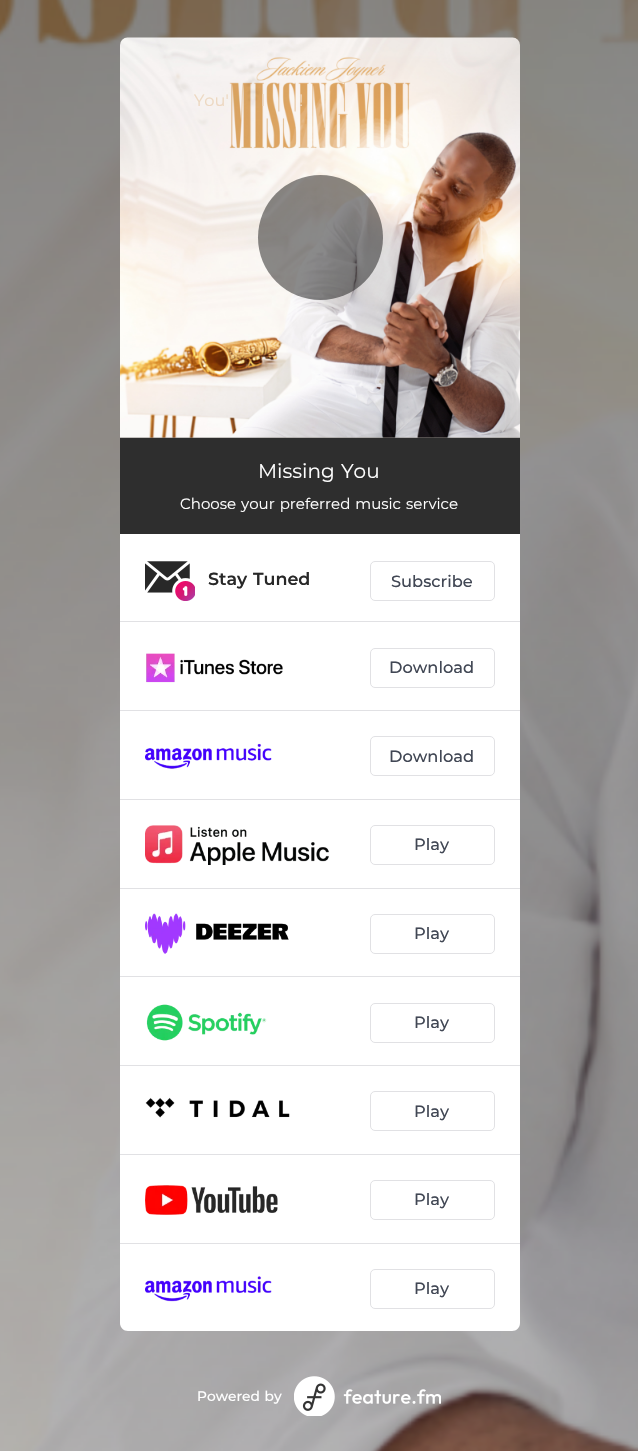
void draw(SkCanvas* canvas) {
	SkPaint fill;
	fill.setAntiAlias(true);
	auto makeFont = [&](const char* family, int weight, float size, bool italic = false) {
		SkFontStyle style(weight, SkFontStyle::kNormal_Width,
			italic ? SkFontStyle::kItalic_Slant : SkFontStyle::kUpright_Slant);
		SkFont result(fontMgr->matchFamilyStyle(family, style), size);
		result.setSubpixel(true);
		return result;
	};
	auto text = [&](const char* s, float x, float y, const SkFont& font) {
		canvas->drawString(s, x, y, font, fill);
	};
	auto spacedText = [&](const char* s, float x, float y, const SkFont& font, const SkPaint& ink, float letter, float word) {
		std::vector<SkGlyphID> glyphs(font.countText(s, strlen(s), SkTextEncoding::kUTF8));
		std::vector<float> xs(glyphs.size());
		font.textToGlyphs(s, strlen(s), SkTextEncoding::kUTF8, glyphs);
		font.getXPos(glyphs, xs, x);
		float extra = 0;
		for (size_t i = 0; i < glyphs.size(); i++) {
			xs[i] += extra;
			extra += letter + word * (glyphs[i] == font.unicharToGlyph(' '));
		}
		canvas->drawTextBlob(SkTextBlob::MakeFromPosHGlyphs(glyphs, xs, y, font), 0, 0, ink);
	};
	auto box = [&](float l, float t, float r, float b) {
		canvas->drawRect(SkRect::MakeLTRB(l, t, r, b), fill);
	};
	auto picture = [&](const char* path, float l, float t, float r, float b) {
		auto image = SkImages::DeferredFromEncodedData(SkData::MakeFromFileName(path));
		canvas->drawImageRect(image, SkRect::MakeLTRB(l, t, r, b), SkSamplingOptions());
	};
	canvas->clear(0xFFFFFFFF);
	picture("image0.png", 0, 0, 638, 1451);
	picture("image1.png", 120, 37, 520, 438);
	fill.setColor(0x73000000);
	canvas->drawCircle(320.5f, 237.5f, 62.5f, fill);
	fill.setColor(0xFF2E2E2E);
	box(120, 438, 520, 534);
	fill.setColor(0xFFFFFFFF);
	canvas->drawPath(SkPathBuilder().moveTo(120, 534).lineTo(520, 534).lineTo(520, 1323).cubicTo(520, 1327.5f, 516.5f, 1331, 512, 1331).lineTo(128, 1331).cubicTo(123.5f, 1331, 120, 1327.5f, 120, 1323).close().detach(), fill);
	fill.setColor(0xFFE1E1E4);
	box(120, 621, 520, 622);
	picture("image2.png", 145, 561, 195, 601);
	fill.setStyle(SkPaint::kStroke_Style);
	fill.setStrokeWidth(1);
	canvas->drawRoundRect(SkRect::MakeLTRB(370.5f, 561.5f, 494.5f, 600.5f), 4.5f, 4.5f, fill);
	fill.setStyle(SkPaint::kFill_Style);
	box(120, 710, 520, 711);
	picture("image3.png", 146, 653, 283, 683);
	fill.setStyle(SkPaint::kStroke_Style);
	canvas->drawRoundRect(SkRect::MakeLTRB(370.5f, 648.5f, 494.5f, 687.5f), 4.5f, 4.5f, fill);
	fill.setStyle(SkPaint::kFill_Style);
	box(120, 799, 520, 800);
	picture("image4.png", 145, 743, 272, 769);
	fill.setStyle(SkPaint::kStroke_Style);
	canvas->drawRoundRect(SkRect::MakeLTRB(370.5f, 736.5f, 494.5f, 775.5f), 4.5f, 4.5f, fill);
	fill.setStyle(SkPaint::kFill_Style);
	box(120, 888, 520, 889);
	picture("image5.png", 145, 825, 329, 865);
	fill.setStyle(SkPaint::kStroke_Style);
	canvas->drawRoundRect(SkRect::MakeLTRB(370.5f, 825.5f, 494.5f, 864.5f), 4.5f, 4.5f, fill);
	fill.setStyle(SkPaint::kFill_Style);
	box(120, 976, 520, 977);
	picture("image6.png", 145, 913, 289, 954);
	fill.setStyle(SkPaint::kStroke_Style);
	canvas->drawRoundRect(SkRect::MakeLTRB(370.5f, 914.5f, 494.5f, 953.5f), 4.5f, 4.5f, fill);
	fill.setStyle(SkPaint::kFill_Style);
	box(120, 1065, 520, 1066);
	picture("image7.png", 146, 1004, 267, 1041);
	fill.setStyle(SkPaint::kStroke_Style);
	canvas->drawRoundRect(SkRect::MakeLTRB(370.5f, 1003.5f, 494.5f, 1042.5f), 4.5f, 4.5f, fill);
	fill.setStyle(SkPaint::kFill_Style);
	box(120, 1154, 520, 1155);
	picture("image8.png", 145, 1097, 290, 1118);
	fill.setStyle(SkPaint::kStroke_Style);
	canvas->drawRoundRect(SkRect::MakeLTRB(370.5f, 1091.5f, 494.5f, 1130.5f), 4.5f, 4.5f, fill);
	fill.setStyle(SkPaint::kFill_Style);
	box(120, 1243, 520, 1244);
	picture("image9.png", 145, 1185, 278, 1215);
	fill.setStyle(SkPaint::kStroke_Style);
	canvas->drawRoundRect(SkRect::MakeLTRB(370.5f, 1180.5f, 494.5f, 1219.5f), 4.5f, 4.5f, fill);
	picture("image10.png", 145, 1276, 272, 1302);
	canvas->drawRoundRect(SkRect::MakeLTRB(370.5f, 1269.5f, 494.5f, 1308.5f), 4.5f, 4.5f, fill);
	picture("image11.png", 294, 1376, 441, 1416);
	auto font1 = makeFont("Montserrat", 400, 16.25f);
	fill.setStyle(SkPaint::kFill_Style);
	fill.setColor(0xFFEDD8C1);
	spacedText("You'", 194, 106, font1, fill, 0, 1);
	spacedText("l", 261, 106, font1, fill, 0, 1);
	spacedText("!", 299, 106, font1, fill, 0, 1);
	auto font2 = makeFont("Montserrat", 400, 20);
	fill.setColor(0xFFFFFFFF);
	spacedText("Missing You", 258, 478, font2, fill, 0, 1);
	auto font3 = makeFont("Montserrat", 400, 15);
	spacedText("Choose your preferred music service", 180, 509, font3, fill, 0, 1);
	auto font4 = makeFont("Montserrat", 600, 17.5f);
	fill.setColor(0xFF282828);
	spacedText("Stay Tuned", 208, 585, font4, fill, 0, 1);
	auto font5 = makeFont("Montserrat", 500, 16.25f);
	fill.setColor(0xFF414754);
	text("Subscribe", 391, 587, font5);
	text("Download", 389, 673, font5);
	text("Download", 389, 762, font5);
	text("Play", 414, 850, font5);
	text("Play", 414, 939, font5);
	text("Play", 414, 1028, font5);
	text("Play", 414, 1117, font5);
	text("Play", 414, 1205, font5);
	text("Play", 414, 1294, font5);
	auto font6 = makeFont("Montserrat", 500, 13.75f);
	fill.setColor(0xFFFFFFFF);
	spacedText("Powered by", 197, 1401, font6, fill, 0, 1);
}
